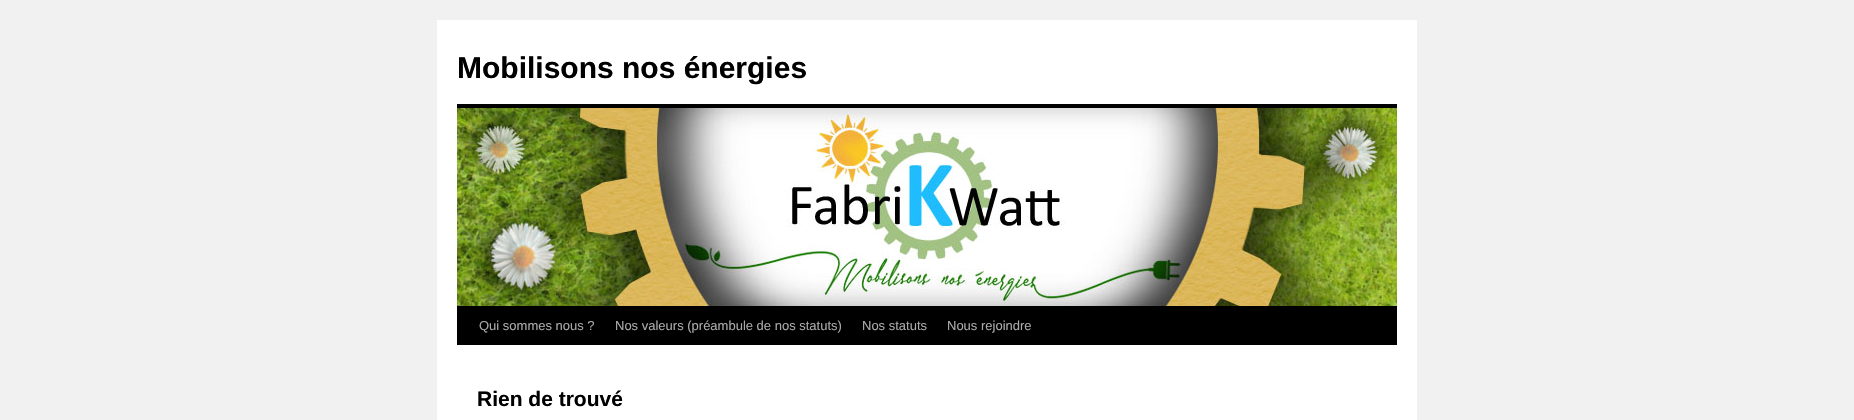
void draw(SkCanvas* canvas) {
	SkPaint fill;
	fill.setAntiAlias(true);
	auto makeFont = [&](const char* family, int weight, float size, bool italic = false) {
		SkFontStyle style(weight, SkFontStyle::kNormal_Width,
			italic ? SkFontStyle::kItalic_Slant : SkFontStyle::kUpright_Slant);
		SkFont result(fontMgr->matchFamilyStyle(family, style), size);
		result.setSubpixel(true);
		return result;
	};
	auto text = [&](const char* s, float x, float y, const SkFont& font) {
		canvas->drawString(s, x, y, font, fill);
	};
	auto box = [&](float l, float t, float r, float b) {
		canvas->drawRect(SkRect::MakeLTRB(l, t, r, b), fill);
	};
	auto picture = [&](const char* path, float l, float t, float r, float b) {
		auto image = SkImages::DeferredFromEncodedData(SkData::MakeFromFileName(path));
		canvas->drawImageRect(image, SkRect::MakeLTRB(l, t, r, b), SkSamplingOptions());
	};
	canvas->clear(0xFFF1F1F1);
	fill.setColor(0xFFFFFFFF);
	box(437, 20, 1417, 420);
	fill.setColor(0xFF000000);
	box(457, 104, 1397, 108);
	box(457, 306, 1397, 345);
	picture("image0.png", 457, 108, 1397, 306);
	auto font1 = makeFont("Liberation Sans", 700, 30);
	text("Mobilisons nos énergies", 457, 78, font1);
	auto font2 = makeFont("Liberation Sans", 400, 13);
	fill.setColor(0xFFAAAAAA);
	text("Qui sommes nous ?", 479, 330, font2);
	text("Nos valeurs (préambule de nos statuts)", 615, 330, font2);
	text("Nos statuts", 862, 330, font2);
	text("Nous rejoindre", 947, 330, font2);
	auto font3 = makeFont("Liberation Sans", 700, 21);
	fill.setColor(0xFF000000);
	text("Rien de trouvé", 477, 406, font3);
}
